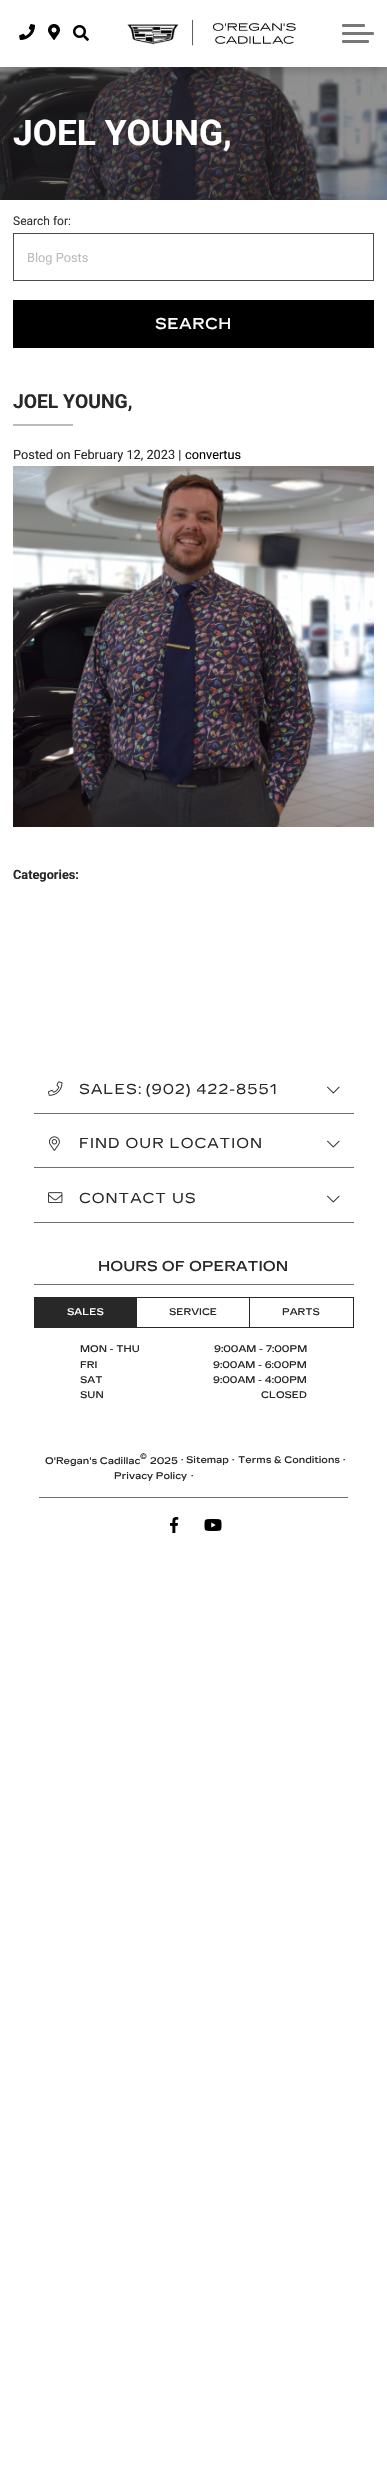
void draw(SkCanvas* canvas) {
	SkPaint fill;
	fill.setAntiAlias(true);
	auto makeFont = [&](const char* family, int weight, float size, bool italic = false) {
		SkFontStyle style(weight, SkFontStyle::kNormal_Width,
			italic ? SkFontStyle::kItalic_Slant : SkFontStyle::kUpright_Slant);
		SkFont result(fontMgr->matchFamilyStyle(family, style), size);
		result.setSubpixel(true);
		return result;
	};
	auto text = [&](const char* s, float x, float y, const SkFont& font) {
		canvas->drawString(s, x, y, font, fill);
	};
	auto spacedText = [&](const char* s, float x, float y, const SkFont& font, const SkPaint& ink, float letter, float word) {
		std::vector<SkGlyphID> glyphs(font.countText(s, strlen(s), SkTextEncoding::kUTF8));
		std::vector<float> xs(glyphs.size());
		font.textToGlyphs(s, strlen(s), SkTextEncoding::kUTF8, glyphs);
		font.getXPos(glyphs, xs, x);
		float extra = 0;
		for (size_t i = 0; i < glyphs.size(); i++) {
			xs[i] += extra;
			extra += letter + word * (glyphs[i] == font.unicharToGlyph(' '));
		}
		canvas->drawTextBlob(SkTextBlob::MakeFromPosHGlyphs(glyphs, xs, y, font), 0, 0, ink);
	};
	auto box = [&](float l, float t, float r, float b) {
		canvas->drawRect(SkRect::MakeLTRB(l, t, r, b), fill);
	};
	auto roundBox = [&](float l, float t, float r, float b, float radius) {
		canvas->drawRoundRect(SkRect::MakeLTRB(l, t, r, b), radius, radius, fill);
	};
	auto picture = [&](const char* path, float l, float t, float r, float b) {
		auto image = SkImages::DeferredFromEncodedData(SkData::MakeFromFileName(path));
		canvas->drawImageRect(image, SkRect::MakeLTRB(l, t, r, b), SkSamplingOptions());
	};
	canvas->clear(0xFFFFFFFF);
	picture("image4.png", 0, 67, 387, 200);
	fill.setColor(0x33000000);
	fill.setMaskFilter(SkMaskFilter::MakeBlur(kNormal_SkBlurStyle, 5));
	canvas->drawRect(SkRect::MakeLTRB(0, 3, 387, 70), fill);
	fill.setMaskFilter(nullptr);
	fill.setColor(0xFFFFFFFF);
	box(0, 0, 387, 67);
	picture("image0.png", 19, 24, 35, 40);
	picture("image1.png", 48, 24, 60, 40);
	picture("image2.png", 73, 25, 89, 41);
	picture("image3.png", 127, 20, 296, 46);
	fill.setColor(0xFF777777);
	roundBox(342, 32, 374, 35, 1);
	roundBox(342, 24, 365, 27, 1);
	roundBox(342, 40, 369, 43, 1);
	fill.setStyle(SkPaint::kStroke_Style);
	fill.setStrokeWidth(1);
	fill.setColor(0xFF4B4B4B);
	canvas->drawRect(SkRect::MakeLTRB(13.5f, 233.5f, 373.5f, 280.5f), fill);
	fill.setStyle(SkPaint::kFill_Style);
	fill.setColor(0xFF000000);
	box(13, 300, 374, 348);
	fill.setColor(0xFFBBBBBB);
	box(13, 424, 73, 426);
	picture("image5.png", 13, 466, 374, 827);
	fill.setColor(0xFF707070);
	box(34, 1113, 354, 1114);
	picture("image6.png", 48, 1081, 63, 1096);
	picture("image7.png", 327, 1086, 340, 1094);
	box(34, 1167, 354, 1168);
	picture("image8.png", 49, 1136, 60, 1151);
	picture("image7.png", 327, 1140, 340, 1148);
	box(34, 1222, 354, 1223);
	picture("image9.png", 48, 1192, 63, 1203);
	picture("image7.png", 327, 1195, 340, 1203);
	box(34, 1284, 354, 1285);
	fill.setStyle(SkPaint::kStroke_Style);
	fill.setColor(0xFF282828);
	canvas->drawRect(SkRect::MakeLTRB(34.5f, 1297.5f, 353.5f, 1327.5f), fill);
	fill.setStyle(SkPaint::kFill_Style);
	box(35, 1298, 137, 1327);
	box(249, 1298, 250, 1327);
	fill.setColor(0xFF707070);
	box(39, 1497, 348, 1498);
	picture("image10.png", 170, 1517, 179, 1533);
	picture("image11.png", 204, 1519, 222, 1531);
	auto font1 = makeFont("Roboto", 700, 35.25f);
	fill.setColor(0xFFFFFFFF);
	text("JOEL YOUNG,", 13, 145, font1);
	auto font2 = makeFont("Roboto", 400, 12);
	fill.setColor(0xFF333333);
	text("Search for:", 13, 225, font2);
	auto font3 = makeFont("Roboto", 400, 12.75f);
	fill.setColor(0xFFBBBBBB);
	text("Blog Posts", 27, 262, font3);
	auto font4 = makeFont("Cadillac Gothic", 700, 15);
	fill.setColor(0xFFFFFFFF);
	spacedText("SEARCH", 155, 329, font4, fill, 1, 0);
	auto font5 = makeFont("Roboto", 700, 19.25f);
	fill.setColor(0xFF282828);
	text("JOEL YOUNG,", 13, 408, font5);
	text("Posted on February 12, 2023 |", 13, 459, font3);
	fill.setColor(0xFF000000);
	text("convertus", 185, 459, font3);
	auto font6 = makeFont("Roboto", 700, 12.75f);
	fill.setColor(0xFF282828);
	text("Categories:", 13, 879, font6);
	auto font7 = makeFont("Cadillac Gothic", 400, 14.4f);
	spacedText("SALES:", 79, 1094, font7, fill, 1, 0);
	spacedText("(902) 422-8551", 146, 1094, font7, fill, 1, 0);
	spacedText("FIND OUR LOCATION", 79, 1148, font7, fill, 1, 0);
	spacedText("CONTACT US", 79, 1203, font7, fill, 1, 0);
	auto font8 = makeFont("Cadillac Gothic", 500, 14.4f);
	text("HOURS OF OPERATION", 98, 1271, font8);
	auto font9 = makeFont("Cadillac Gothic", 500, 9.6f);
	fill.setColor(0xFFFFFFFF);
	text("SALES", 67, 1315, font9);
	fill.setColor(0xFF282828);
	text("SERVICE", 169, 1315, font9);
	text("PARTS", 282, 1315, font9);
	text("MON - THU", 80, 1352, font9);
	text("9:00AM - 7:00PM", 214, 1352, font9);
	text("FRI", 80, 1368, font9);
	text("9:00AM - 6:00PM", 213, 1368, font9);
	text("SAT", 80, 1383, font9);
	text("9:00AM - 4:00PM", 213, 1383, font9);
	text("SUN", 80, 1398, font9);
	text("CLOSED", 261, 1398, font9);
	text("O'Regan's Cadillac", 45, 1464, font9);
	auto font10 = makeFont("Cadillac Gothic", 500, 8);
	text("©", 140, 1459, font10);
	text("2025", 150, 1464, font9);
	text("·", 181, 1463, font9);
	text("Sitemap", 186, 1463, font9);
	text("·", 232, 1463, font9);
	text("Terms & Conditions", 238, 1463, font9);
	text("·", 343, 1463, font9);
	text("Privacy Policy", 114, 1479, font9);
	text("·", 191, 1479, font9);
}
